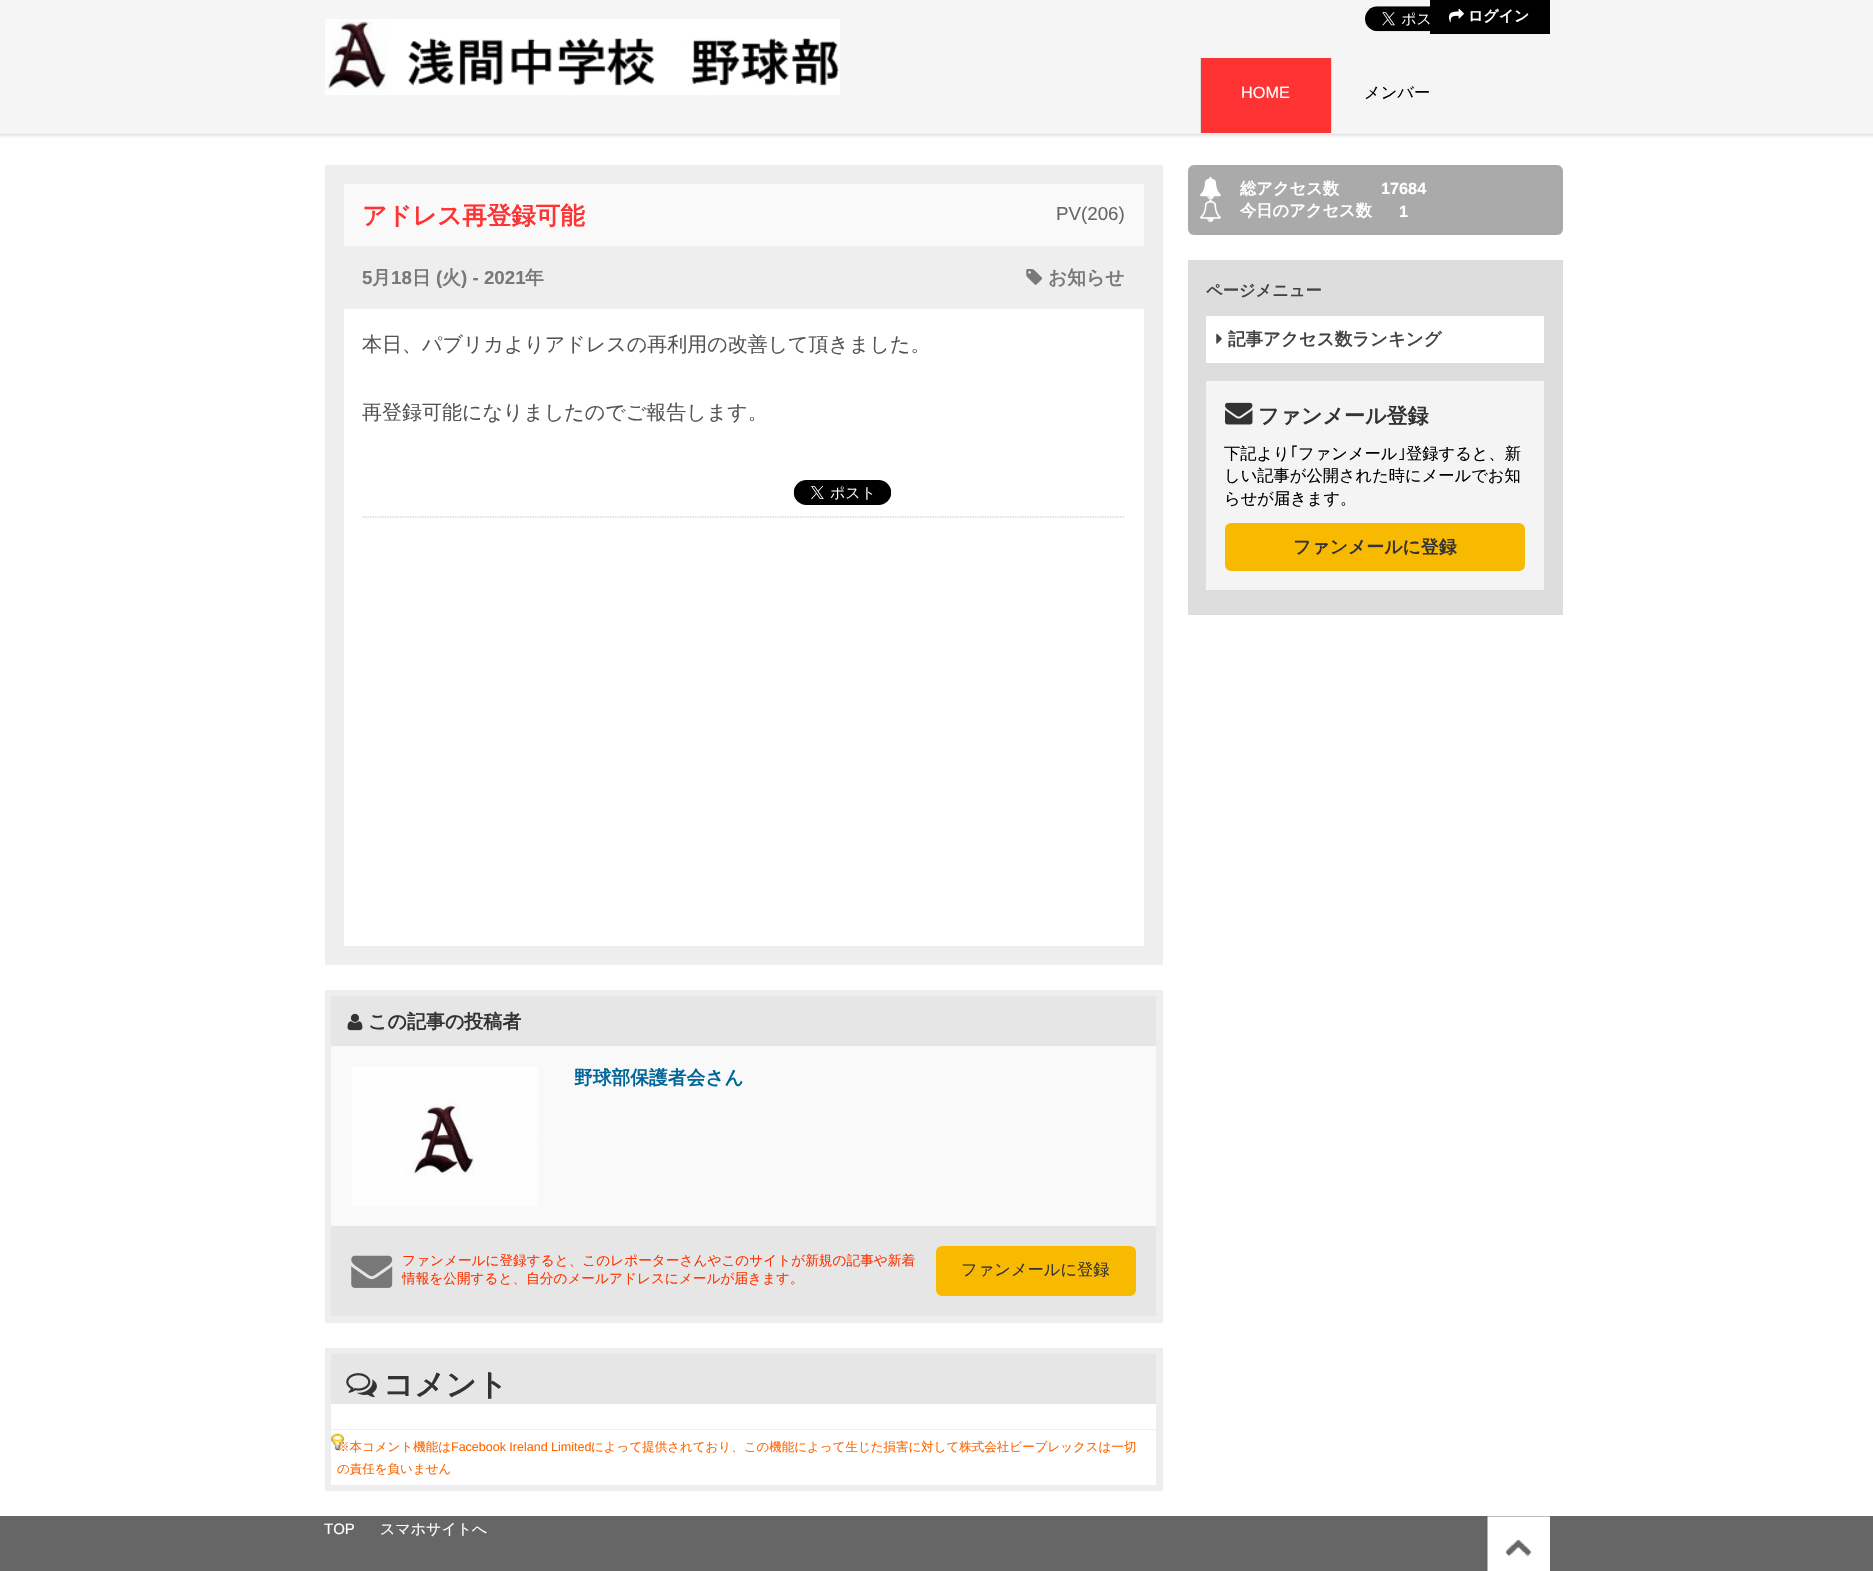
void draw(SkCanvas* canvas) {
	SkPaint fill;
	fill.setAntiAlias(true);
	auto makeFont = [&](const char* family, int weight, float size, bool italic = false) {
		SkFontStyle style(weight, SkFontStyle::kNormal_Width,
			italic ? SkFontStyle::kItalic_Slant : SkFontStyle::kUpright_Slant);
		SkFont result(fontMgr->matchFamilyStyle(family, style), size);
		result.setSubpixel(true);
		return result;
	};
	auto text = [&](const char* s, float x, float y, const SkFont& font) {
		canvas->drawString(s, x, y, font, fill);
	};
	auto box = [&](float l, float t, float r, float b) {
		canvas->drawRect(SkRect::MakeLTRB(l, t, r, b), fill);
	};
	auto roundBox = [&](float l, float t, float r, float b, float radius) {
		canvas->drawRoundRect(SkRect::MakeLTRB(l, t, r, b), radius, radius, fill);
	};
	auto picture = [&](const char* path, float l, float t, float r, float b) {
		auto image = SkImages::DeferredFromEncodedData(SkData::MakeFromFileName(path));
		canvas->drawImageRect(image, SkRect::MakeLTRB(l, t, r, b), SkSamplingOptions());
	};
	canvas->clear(0xFFFFFFFF);
	picture("image0.png", 0, 0, 1873, 138);
	picture("image1.png", 1365, 6, 1430, 32);
	fill.setColor(0xFF000000);
	box(1430, 0, 1550, 34);
	picture("image2.png", 1448, 8, 1464, 23);
	picture("image3.png", 325, 19, 840, 95);
	fill.setColor(0xFFFF3333);
	box(1201, 58, 1331, 133);
	fill.setColor(0xFFDDDDDD);
	box(1200, 58, 1201, 133);
	box(1331, 58, 1332, 133);
	fill.setColor(0xFFEEEEEE);
	box(325, 165, 1163, 965);
	fill.setColor(0xFFF9F9F9);
	box(344, 184, 1144, 246);
	picture("image4.png", 1026, 269, 1043, 285);
	fill.setColor(0xFFFFFFFF);
	box(344, 309, 1144, 946);
	picture("image5.png", 793, 480, 892, 505);
	fill.setStyle(SkPaint::kStroke_Style);
	fill.setStrokeWidth(1.2f);
	fill.setColor(0xFFBBBBBB);
	fill.setPathEffect(SkDashPathEffect::Make({{1.25f, 1.25f}}, 0));
	canvas->drawPath(SkPathBuilder().moveTo(362.5f, 517).lineTo(1125, 517).detach(), fill);
	fill.setPathEffect(nullptr);
	fill.setStyle(SkPaint::kFill_Style);
	fill.setColor(0xFFE6E6E6);
	box(331, 996, 1156, 1046);
	fill.setColor(0xFFEEEEEE);
	box(325, 990, 1163, 996);
	box(1156, 990, 1163, 1323);
	box(325, 990, 331, 1226);
	picture("image6.png", 347, 1013, 363, 1031);
	fill.setColor(0xFFF9F9F9);
	box(331, 1046, 1156, 1226);
	picture("image7.png", 352, 1067, 538, 1206);
	fill.setColor(0xFFE6E6E6);
	box(331, 1226, 1156, 1316);
	fill.setColor(0xFFEEEEEE);
	box(325, 1316, 1163, 1323);
	box(325, 1226, 331, 1323);
	picture("image8.png", 351, 1255, 393, 1288);
	fill.setColor(0xFFF8BA01);
	roundBox(936, 1246, 1136, 1296, 6);
	fill.setColor(0xFFE6E6E6);
	box(331, 1354, 1156, 1404);
	fill.setColor(0xFFEEEEEE);
	box(325, 1348, 1163, 1354);
	box(1156, 1348, 1163, 1491);
	box(325, 1348, 331, 1404);
	picture("image9.png", 346, 1373, 377, 1398);
	box(325, 1485, 1163, 1491);
	box(325, 1404, 331, 1491);
	picture("image10.png", 331, 1433, 344, 1450);
	box(331, 1429, 1156, 1430);
	fill.setColor(0xFFAAAAAA);
	roundBox(1188, 165, 1563, 235, 6);
	picture("image11.png", 1200, 176, 1221, 200);
	picture("image12.png", 1200, 199, 1221, 222);
	fill.setColor(0xFFDDDDDD);
	box(1188, 260, 1563, 615);
	fill.setColor(0xFFFFFFFF);
	box(1206, 316, 1544, 363);
	picture("image13.png", 1216, 333, 1222, 344);
	fill.setColor(0xFFF4F4F4);
	box(1206, 381, 1544, 590);
	picture("image14.png", 1225, 402, 1253, 425);
	fill.setColor(0xFFF8BA01);
	roundBox(1225, 523, 1525, 571, 6);
	fill.setColor(0xFF666666);
	box(0, 1516, 1873, 1571);
	picture("image15.png", 1487, 1516, 1550, 1571);
	auto font1 = makeFont("WenQuanYi Zen Hei", 700, 15);
	fill.setColor(0xFFFFFFFF);
	text("ログイン", 1468, 21, font1);
	auto font2 = makeFont("Liberation Sans", 400, 16.25f);
	text("HOME", 1241, 98, font2);
	auto font3 = makeFont("WenQuanYi Zen Hei", 500, 16.25f);
	fill.setColor(0xFF000000);
	text("メンバー", 1364, 98, font3);
	auto font4 = makeFont("WenQuanYi Zen Hei", 700, 24.5f);
	fill.setColor(0xFFFF3333);
	text("アドレス再登録可能", 362, 224, font4);
	auto font5 = makeFont("Liberation Sans", 400, 18.75f);
	fill.setColor(0xFF666666);
	text("PV(206)", 1056, 220, font5);
	auto font6 = makeFont("Liberation Sans", 700, 18.75f);
	fill.setColor(0xFF797979);
	text("5", 362, 284, font6);
	auto font7 = makeFont("WenQuanYi Zen Hei", 700, 18.75f);
	text("月", 372, 284, font7);
	text("18", 391, 284, font6);
	text("日", 412, 284, font7);
	text("(", 436, 284, font6);
	text("火", 442, 284, font7);
	text(") - 2021", 461, 284, font6);
	text("年", 525, 284, font7);
	text("お知らせ", 1048, 284, font7);
	auto font8 = makeFont("WenQuanYi Zen Hei", 500, 20);
	fill.setColor(0xFF555555);
	text("本日、パブリカよりアドレスの再利用の改善して頂きました。", 362, 351, font8);
	text("再登録可能になりましたのでご報告します。", 362, 419, font8);
	auto font9 = makeFont("WenQuanYi Zen Hei", 700, 19);
	fill.setColor(0xFF333333);
	text("この記事の投稿者", 368, 1028, font9);
	fill.setColor(0xFF006699);
	text("野球部保護者会さん", 574, 1084, font7);
	auto font10 = makeFont("WenQuanYi Zen Hei", 500, 13.65f);
	fill.setColor(0xFFFF3300);
	text("ファンメールに登録すると、このレポーターさんやこのサイトが新規の記事や新着", 402, 1265, font10);
	text("情報を公開すると、自分のメールアドレスにメールが届きます。", 402, 1283, font10);
	fill.setColor(0xFF333333);
	text("ファンメールに登録", 961, 1275, font3);
	auto font11 = makeFont("WenQuanYi Zen Hei", 700, 30.5f);
	text("コメント", 383, 1395, font11);
	auto font12 = makeFont("WenQuanYi Zen Hei", 500, 12.5f);
	fill.setColor(0xFFFF6600);
	text("※本コメント機能は", 337, 1451, font12);
	auto font13 = makeFont("Liberation Sans", 400, 12.5f);
	text("Facebook Ireland Limited", 451, 1451, font13);
	text("によって提供されており、この機能によって生じた損害に対して株式会社ビーブレックスは一切", 591, 1451, font12);
	text("の責任を負いません", 337, 1473, font12);
	auto font14 = makeFont("WenQuanYi Zen Hei", 700, 16.25f);
	fill.setColor(0xFFFFFFFF);
	text("総アクセス数", 1240, 194, font14);
	auto font15 = makeFont("Liberation Sans", 700, 16.25f);
	text("17684", 1381, 194, font15);
	text("今日のアクセス数", 1240, 216, font14);
	text("1", 1399, 217, font15);
	fill.setColor(0xFF444444);
	text("ページメニュー", 1206, 296, font14);
	auto font16 = makeFont("WenQuanYi Zen Hei", 700, 17.5f);
	text("記事アクセス数ランキング", 1228, 345, font16);
	auto font17 = makeFont("WenQuanYi Zen Hei", 700, 21);
	fill.setColor(0xFF333333);
	text("ファンメール登録", 1258, 423, font17);
	fill.setColor(0xFF000000);
	text("下記より", 1224, 459, font3);
	auto font18 = makeFont("IPAGothic", 400, 16.25f);
	text("｢", 1290, 459, font18);
	text("ファンメール", 1298, 459, font3);
	text("｣", 1398, 459, font18);
	text("登録すると、新", 1406, 459, font3);
	text("しい記事が公開された時にメールでお知", 1224, 481, font3);
	text("らせが届きます。", 1224, 504, font3);
	auto font19 = makeFont("WenQuanYi Zen Hei", 700, 17.9f);
	fill.setColor(0xFF333333);
	text("ファンメールに登録", 1293, 553, font19);
	auto font20 = makeFont("Liberation Sans", 400, 15);
	fill.setColor(0xFFFFFFFF);
	text("TOP", 324, 1534, font20);
	auto font21 = makeFont("WenQuanYi Zen Hei", 500, 15);
	text("スマホサイトへ", 380, 1534, font21);
}
